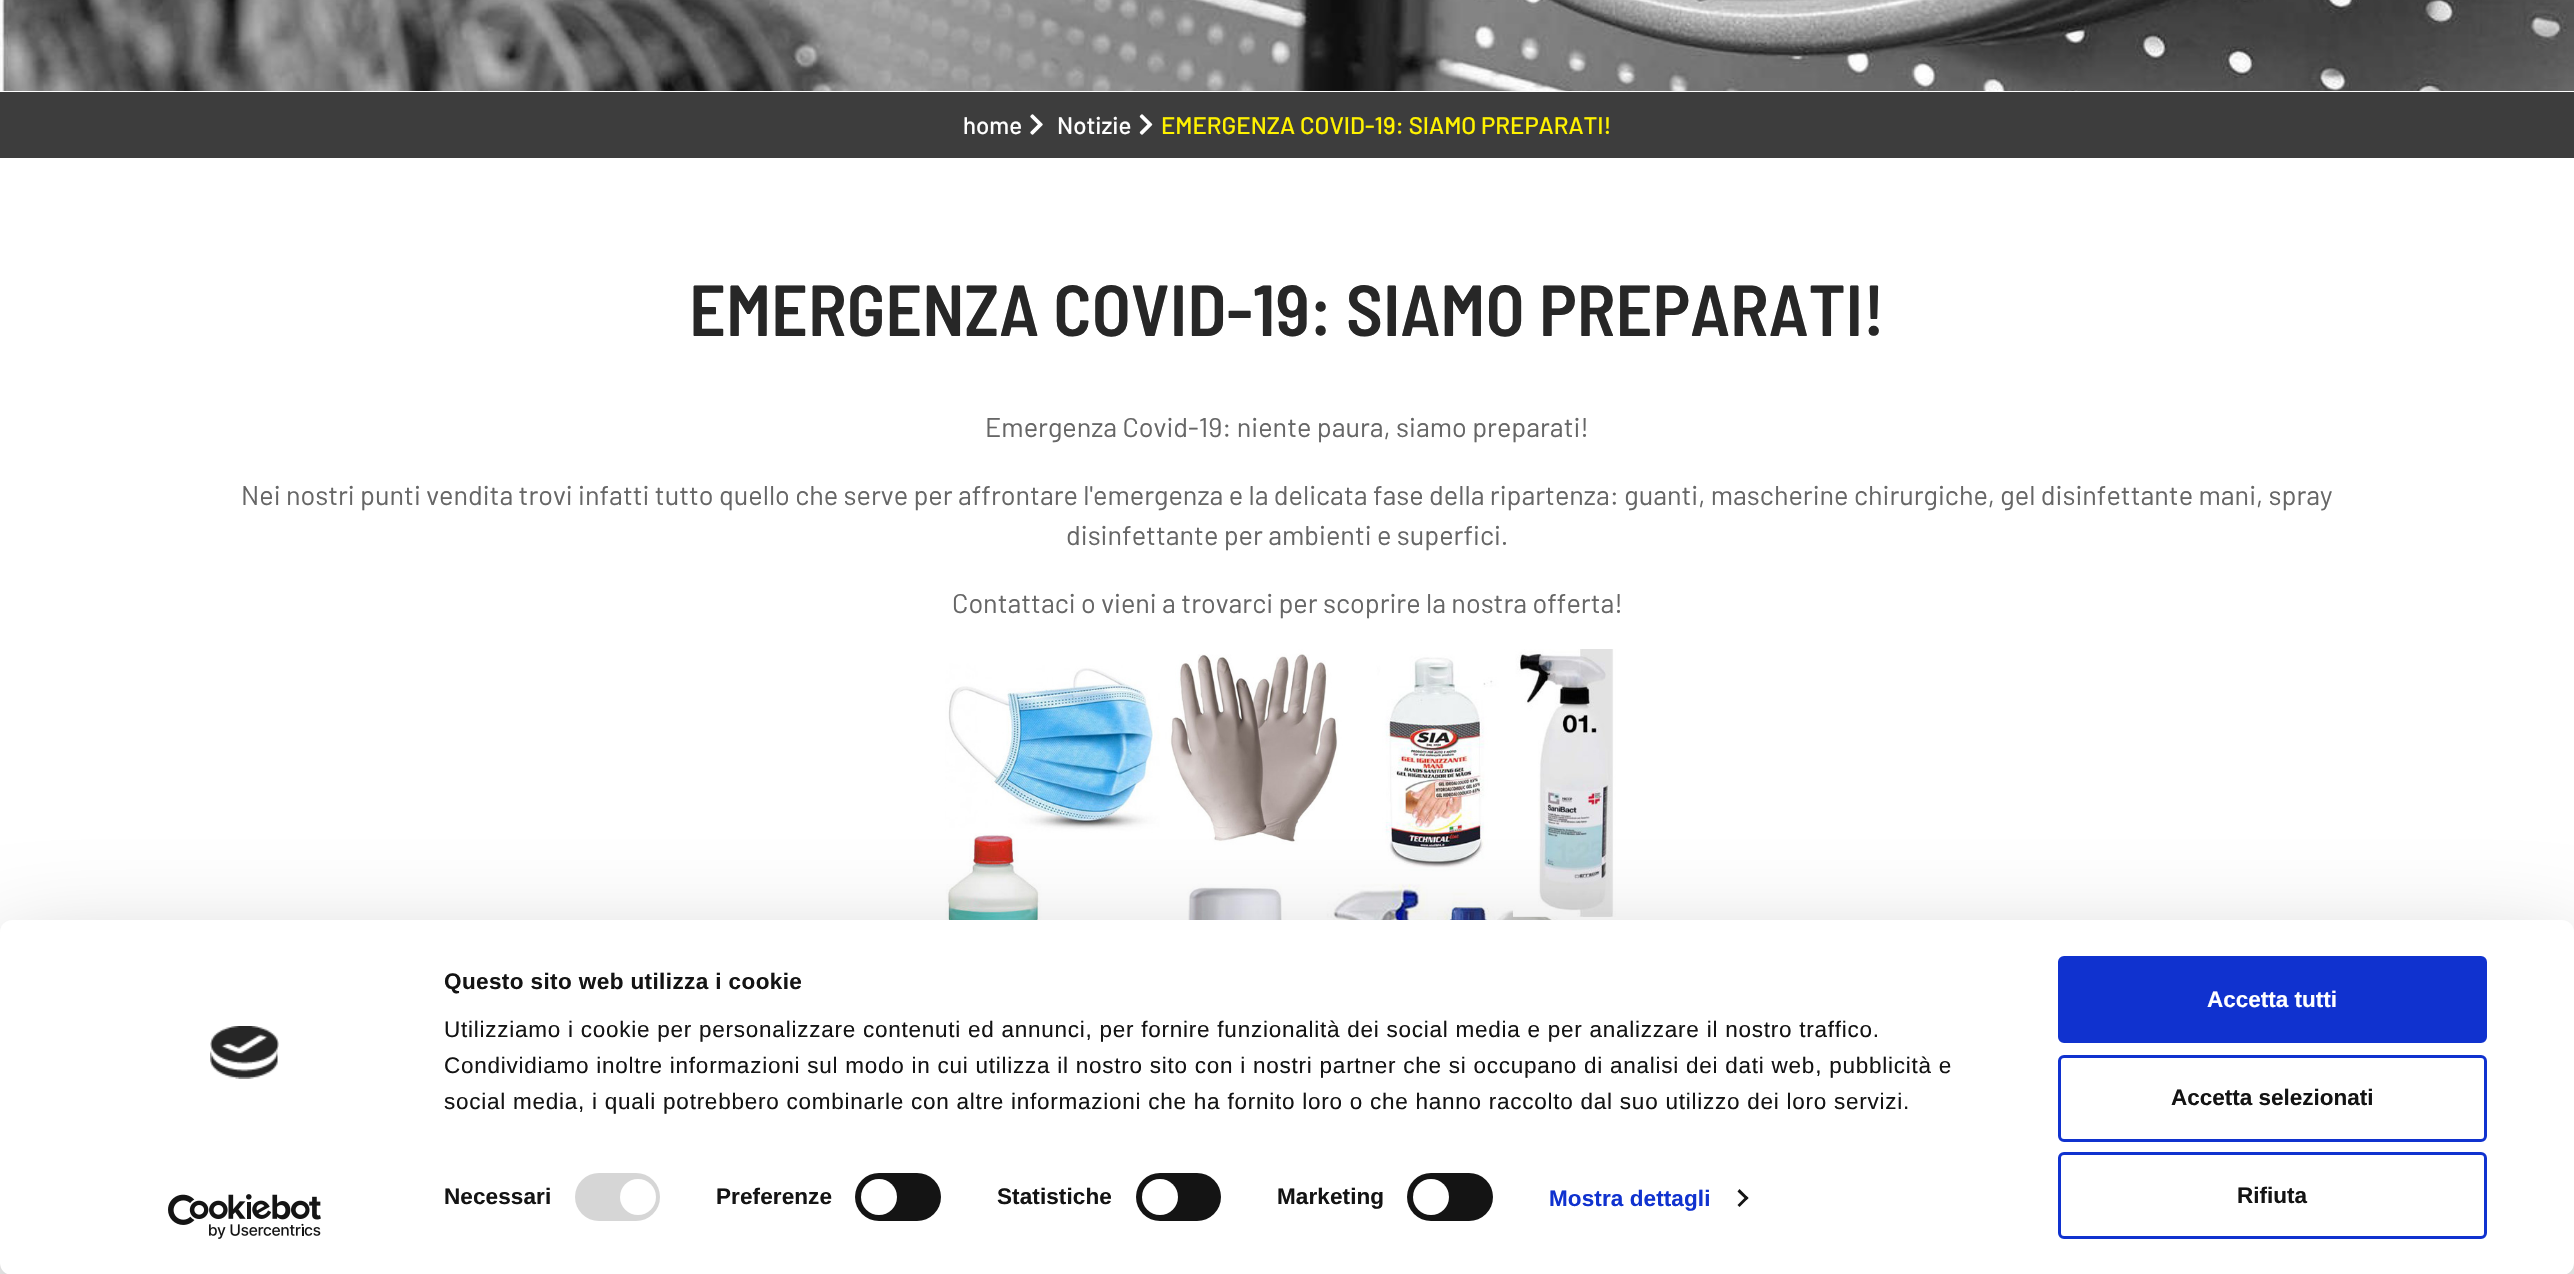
void draw(SkCanvas* canvas) {
	SkPaint fill;
	fill.setAntiAlias(true);
	auto makeFont = [&](const char* family, int weight, float size, bool italic = false) {
		SkFontStyle style(weight, SkFontStyle::kNormal_Width,
			italic ? SkFontStyle::kItalic_Slant : SkFontStyle::kUpright_Slant);
		SkFont result(fontMgr->matchFamilyStyle(family, style), size);
		result.setSubpixel(true);
		return result;
	};
	auto text = [&](const char* s, float x, float y, const SkFont& font) {
		canvas->drawString(s, x, y, font, fill);
	};
	auto spacedText = [&](const char* s, float x, float y, const SkFont& font, const SkPaint& ink, float letter, float word) {
		std::vector<SkGlyphID> glyphs(font.countText(s, strlen(s), SkTextEncoding::kUTF8));
		std::vector<float> xs(glyphs.size());
		font.textToGlyphs(s, strlen(s), SkTextEncoding::kUTF8, glyphs);
		font.getXPos(glyphs, xs, x);
		float extra = 0;
		for (size_t i = 0; i < glyphs.size(); i++) {
			xs[i] += extra;
			extra += letter + word * (glyphs[i] == font.unicharToGlyph(' '));
		}
		canvas->drawTextBlob(SkTextBlob::MakeFromPosHGlyphs(glyphs, xs, y, font), 0, 0, ink);
	};
	auto box = [&](float l, float t, float r, float b) {
		canvas->drawRect(SkRect::MakeLTRB(l, t, r, b), fill);
	};
	auto roundBox = [&](float l, float t, float r, float b, float radius) {
		canvas->drawRoundRect(SkRect::MakeLTRB(l, t, r, b), radius, radius, fill);
	};
	auto picture = [&](const char* path, float l, float t, float r, float b) {
		auto image = SkImages::DeferredFromEncodedData(SkData::MakeFromFileName(path));
		canvas->drawImageRect(image, SkRect::MakeLTRB(l, t, r, b), SkSamplingOptions());
	};
	canvas->clear(0xFFFFFFFF);
	picture("image0.png", 0, 0, 2574, 91);
	fill.setColor(0xFF3D3D3D);
	box(0, 92, 2574, 158);
	picture("image1.png", 1030, 114, 1043, 135);
	picture("image2.png", 1139, 114, 1153, 135);
	picture("image3.png", 945, 649, 1635, 920);
	fill.setColor(0x4D000000);
	fill.setMaskFilter(SkMaskFilter::MakeBlur(kNormal_SkBlurStyle, 52.5f));
	canvas->drawRoundRect(SkRect::MakeLTRB(0, 965, 2574, 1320), 12, 12, fill);
	fill.setMaskFilter(nullptr);
	fill.setColor(0xFFFFFFFF);
	roundBox(0, 920, 2574, 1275, 12);
	picture("image4.png", 210, 1026, 279, 1079);
	picture("image5.png", 168, 1194, 321, 1239);
	fill.setColor(0xFFD6D6D6);
	roundBox(575, 1173, 660, 1221, 24);
	fill.setColor(0xFFFFFFFF);
	canvas->drawCircle(638, 1197, 18, fill);
	fill.setColor(0xFF141414);
	roundBox(855, 1173, 941, 1221, 24);
	fill.setColor(0xFFFFFFFF);
	canvas->drawCircle(879, 1197, 18, fill);
	fill.setColor(0xFF141414);
	roundBox(1136, 1173, 1221, 1221, 24);
	fill.setColor(0xFFFFFFFF);
	canvas->drawCircle(1160, 1197, 18, fill);
	fill.setColor(0xFF141414);
	roundBox(1407, 1173, 1493, 1221, 24);
	fill.setColor(0xFFFFFFFF);
	canvas->drawCircle(1431, 1197, 18, fill);
	fill.setColor(0xFF141414);
	canvas->drawPath(SkPathBuilder().moveTo(1739.5f, 1189).lineTo(1748.5f, 1198).lineTo(1746.5f, 1200).lineTo(1737.5f, 1191.5f).close().detach(), fill);
	canvas->drawPath(SkPathBuilder().moveTo(1746.5f, 1196).lineTo(1748.5f, 1198).lineTo(1739.5f, 1207).lineTo(1737.5f, 1205).close().detach(), fill);
	fill.setColor(0xFF1032CF);
	canvas->drawRoundRect(SkRect::MakeLTRB(2059.5f, 957.5f, 2485.5f, 1041.5f), 4.5f, 4.5f, fill);
	fill.setStyle(SkPaint::kStroke_Style);
	fill.setStrokeWidth(3);
	canvas->drawRoundRect(SkRect::MakeLTRB(2059.5f, 957.5f, 2485.5f, 1041.5f), 4.5f, 4.5f, fill);
	canvas->drawRoundRect(SkRect::MakeLTRB(2059.5f, 1056.5f, 2485.5f, 1140.5f), 4.5f, 4.5f, fill);
	canvas->drawRoundRect(SkRect::MakeLTRB(2059.5f, 1153.5f, 2485.5f, 1237.5f), 4.5f, 4.5f, fill);
	auto font1 = makeFont("Barlow", 500, 24);
	fill.setStyle(SkPaint::kFill_Style);
	fill.setColor(0xFFFFFFFF);
	text("home", 963, 134, font1);
	text("Notizie", 1057, 134, font1);
	fill.setColor(0xFFFFF200);
	text("EMERGENZA COVID-19: SIAMO PREPARATI!", 1161, 134, font1);
	auto font2 = makeFont("Barlow Semi Condensed", 600, 72);
	fill.setColor(0xFF272727);
	text("EMERGENZA COVID-19: SIAMO PREPARATI!", 689, 336, font2);
	auto font3 = makeFont("Barlow", 400, 27);
	fill.setColor(0xFF666666);
	text("Emergenza Covid-19: niente paura, siamo preparati!", 985, 437, font3);
	text("Nei nostri punti vendita trovi infatti tutto quello che serve per affrontare l'emergenza e la delicata fase della ripartenza: guanti, mascherine chirurgiche, gel disinfettante mani, spray", 241, 505, font3);
	text("disinfettante per ambienti e superfici.", 1066, 545, font3);
	text("Contattaci o vieni a trovarci per scoprire la nostra offerta!", 952, 613, font3);
	auto font4 = makeFont("Liberation Sans", 700, 22.5f);
	fill.setColor(0xFF141414);
	spacedText("Questo sito web utilizza i cookie", 444, 989, font4, fill, 0.4f, 0);
	auto font5 = makeFont("Liberation Sans", 400, 22.5f);
	spacedText("Utilizziamo i cookie per personalizzare contenuti ed annunci, per fornire funzionalità dei social media e per analizzare il nostro traffico.", 444, 1037, font5, fill, 0.75f, 0);
	spacedText("Condividiamo inoltre informazioni sul modo in cui utilizza il nostro sito con i nostri partner che si occupano di analisi dei dati web, pubblicità e", 444, 1073, font5, fill, 0.75f, 0);
	spacedText("social media, i quali potrebbero combinarle con altre informazioni che ha fornito loro o che hanno raccolto dal suo utilizzo dei loro servizi.", 444, 1109, font5, fill, 0.75f, 0);
	spacedText("Necessari", 444, 1204, font4, fill, 0.1f, 0);
	spacedText("Preferenze", 716, 1204, font4, fill, 0.1f, 0);
	spacedText("Statistiche", 997, 1204, font4, fill, 0.1f, 0);
	spacedText("Marketing", 1277, 1204, font4, fill, 0.1f, 0);
	fill.setColor(0xFF1032CF);
	spacedText("Mostra dettagli", 1549, 1206, font4, fill, 0.1f, 0);
	fill.setColor(0xFFFFFFFF);
	text("Accetta tutti", 2207, 1007, font4);
	fill.setColor(0xFF141414);
	text("Accetta selezionati", 2171, 1105, font4);
	text("Rifiuta", 2237, 1203, font4);
}
